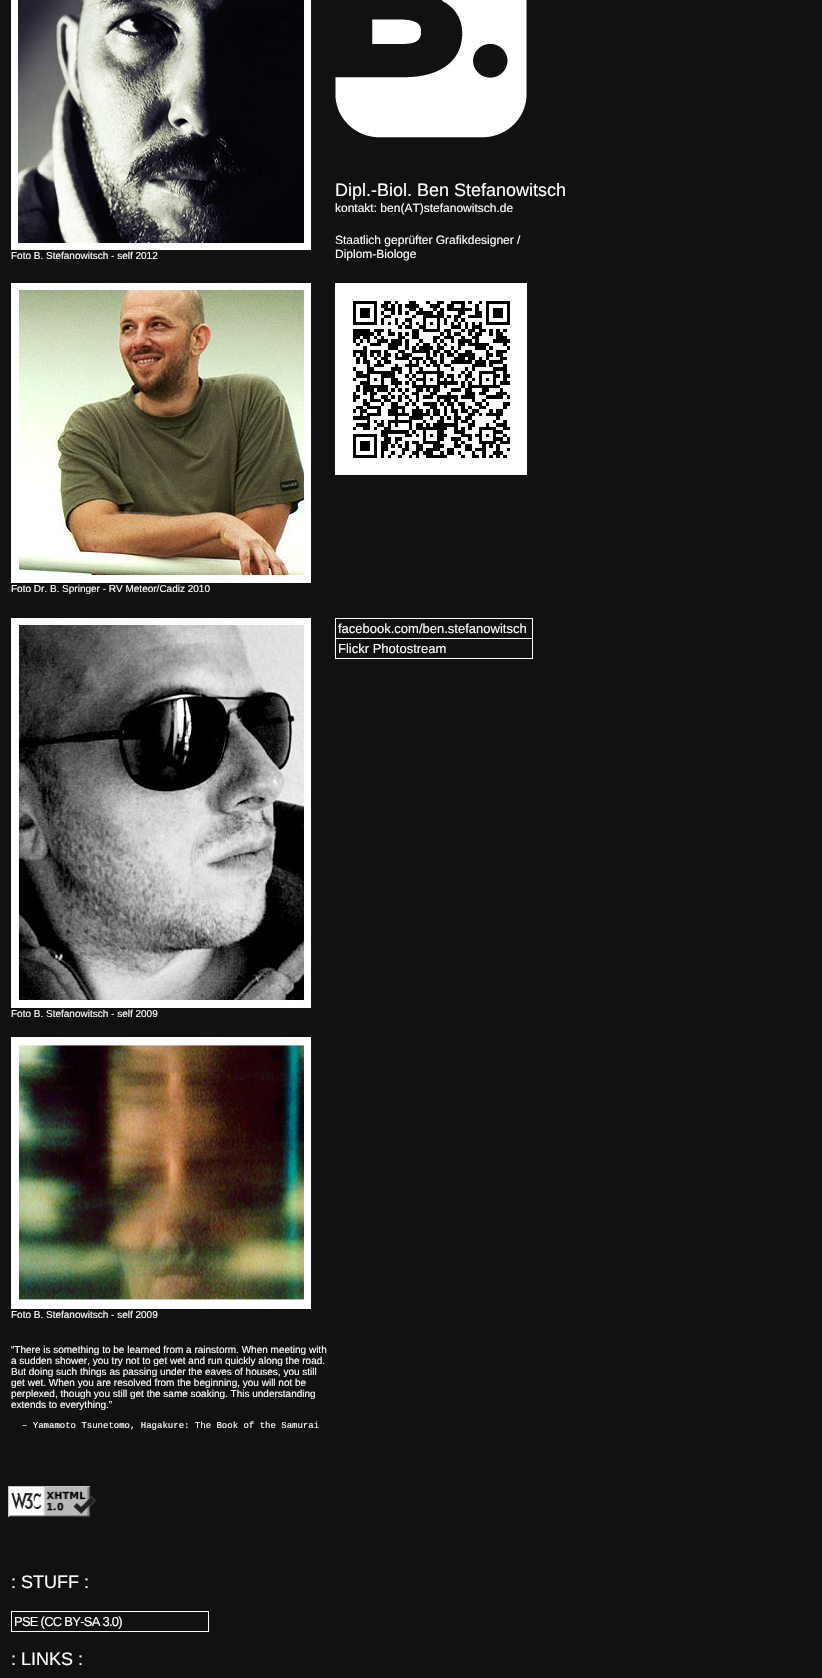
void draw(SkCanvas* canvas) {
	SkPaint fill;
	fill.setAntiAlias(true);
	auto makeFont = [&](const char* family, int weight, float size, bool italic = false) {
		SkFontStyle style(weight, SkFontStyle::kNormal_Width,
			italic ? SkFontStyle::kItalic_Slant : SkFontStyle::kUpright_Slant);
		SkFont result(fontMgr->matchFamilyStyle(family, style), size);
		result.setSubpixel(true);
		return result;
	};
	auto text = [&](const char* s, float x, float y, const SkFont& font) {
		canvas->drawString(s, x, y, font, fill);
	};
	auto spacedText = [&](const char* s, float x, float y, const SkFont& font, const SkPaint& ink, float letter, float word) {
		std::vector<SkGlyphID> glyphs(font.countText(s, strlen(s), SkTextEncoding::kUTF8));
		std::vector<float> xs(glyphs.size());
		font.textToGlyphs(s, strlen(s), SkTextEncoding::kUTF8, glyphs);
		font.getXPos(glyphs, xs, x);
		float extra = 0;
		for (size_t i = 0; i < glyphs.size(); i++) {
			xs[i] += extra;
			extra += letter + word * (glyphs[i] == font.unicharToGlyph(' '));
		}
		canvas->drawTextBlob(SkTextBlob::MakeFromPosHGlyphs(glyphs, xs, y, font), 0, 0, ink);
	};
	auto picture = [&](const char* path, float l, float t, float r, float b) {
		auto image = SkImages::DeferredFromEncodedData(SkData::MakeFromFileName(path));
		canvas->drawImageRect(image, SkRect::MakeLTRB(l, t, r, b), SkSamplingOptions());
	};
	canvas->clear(0xFF111111);
	picture("image0.png", 335, 0, 527, 138);
	picture("image1.png", 11, 0, 311, 250);
	picture("image2.png", 335, 283, 527, 475);
	picture("image3.png", 11, 283, 311, 583);
	fill.setStyle(SkPaint::kStroke_Style);
	fill.setStrokeWidth(1);
	fill.setColor(0xFFFFFFFF);
	canvas->drawRect(SkRect::MakeLTRB(335.5f, 618.5f, 532.5f, 638.5f), fill);
	canvas->drawRect(SkRect::MakeLTRB(335.5f, 638.5f, 532.5f, 658.5f), fill);
	picture("image4.png", 11, 618, 311, 1008);
	picture("image5.png", 11, 1037, 311, 1309);
	picture("image6.png", 8, 1486, 96, 1517);
	canvas->drawRect(SkRect::MakeLTRB(11.5f, 1611.5f, 208.5f, 1631.5f), fill);
	auto font1 = makeFont("Liberation Sans", 400, 10);
	fill.setStyle(SkPaint::kFill_Style);
	text("Foto B. Stefanowitsch - self 2012", 11, 259, font1);
	auto font2 = makeFont("Liberation Sans", 400, 18);
	text("Dipl.-Biol. Ben Stefanowitsch", 335, 196, font2);
	auto font3 = makeFont("Liberation Sans", 400, 12);
	text("kontakt: ben(AT)stefanowitsch.de", 335, 212, font3);
	text("Staatlich geprüfter Grafikdesigner /", 335, 244, font3);
	text("Diplom-Biologe", 335, 258, font3);
	text("Foto Dr. B. Springer - RV Meteor/Cadiz 2010", 11, 592, font1);
	auto font4 = makeFont("Liberation Sans", 400, 13);
	text("facebook.com/ben.stefanowitsch", 338, 633, font4);
	text("Flickr Photostream", 338, 653, font4);
	text("Foto B. Stefanowitsch - self 2009", 11, 1017, font1);
	text("Foto B. Stefanowitsch - self 2009", 11, 1318, font1);
	text("“There is something to be learned from a rainstorm. When meeting with", 11, 1353, font1);
	text("a sudden shower, you try not to get wet and run quickly along the road.", 11, 1364, font1);
	text("But doing such things as passing under the eaves of houses, you still", 11, 1375, font1);
	text("get wet. When you are resolved from the beginning, you will not be", 11, 1386, font1);
	text("perplexed, though you still get the same soaking. This understanding", 11, 1397, font1);
	text("extends to everything.”", 11, 1408, font1);
	auto font5 = makeFont("Liberation Mono", 400, 9);
	text("– Yamamoto Tsunetomo, Hagakure: The Book of the Samurai", 22, 1428, font5);
	text(": STUFF :", 11, 1588, font2);
	spacedText("PSE (CC BY-SA 3.0)", 14, 1626, font4, fill, -0.75f, 0);
	text(": LINKS :", 11, 1665, font2);
}
